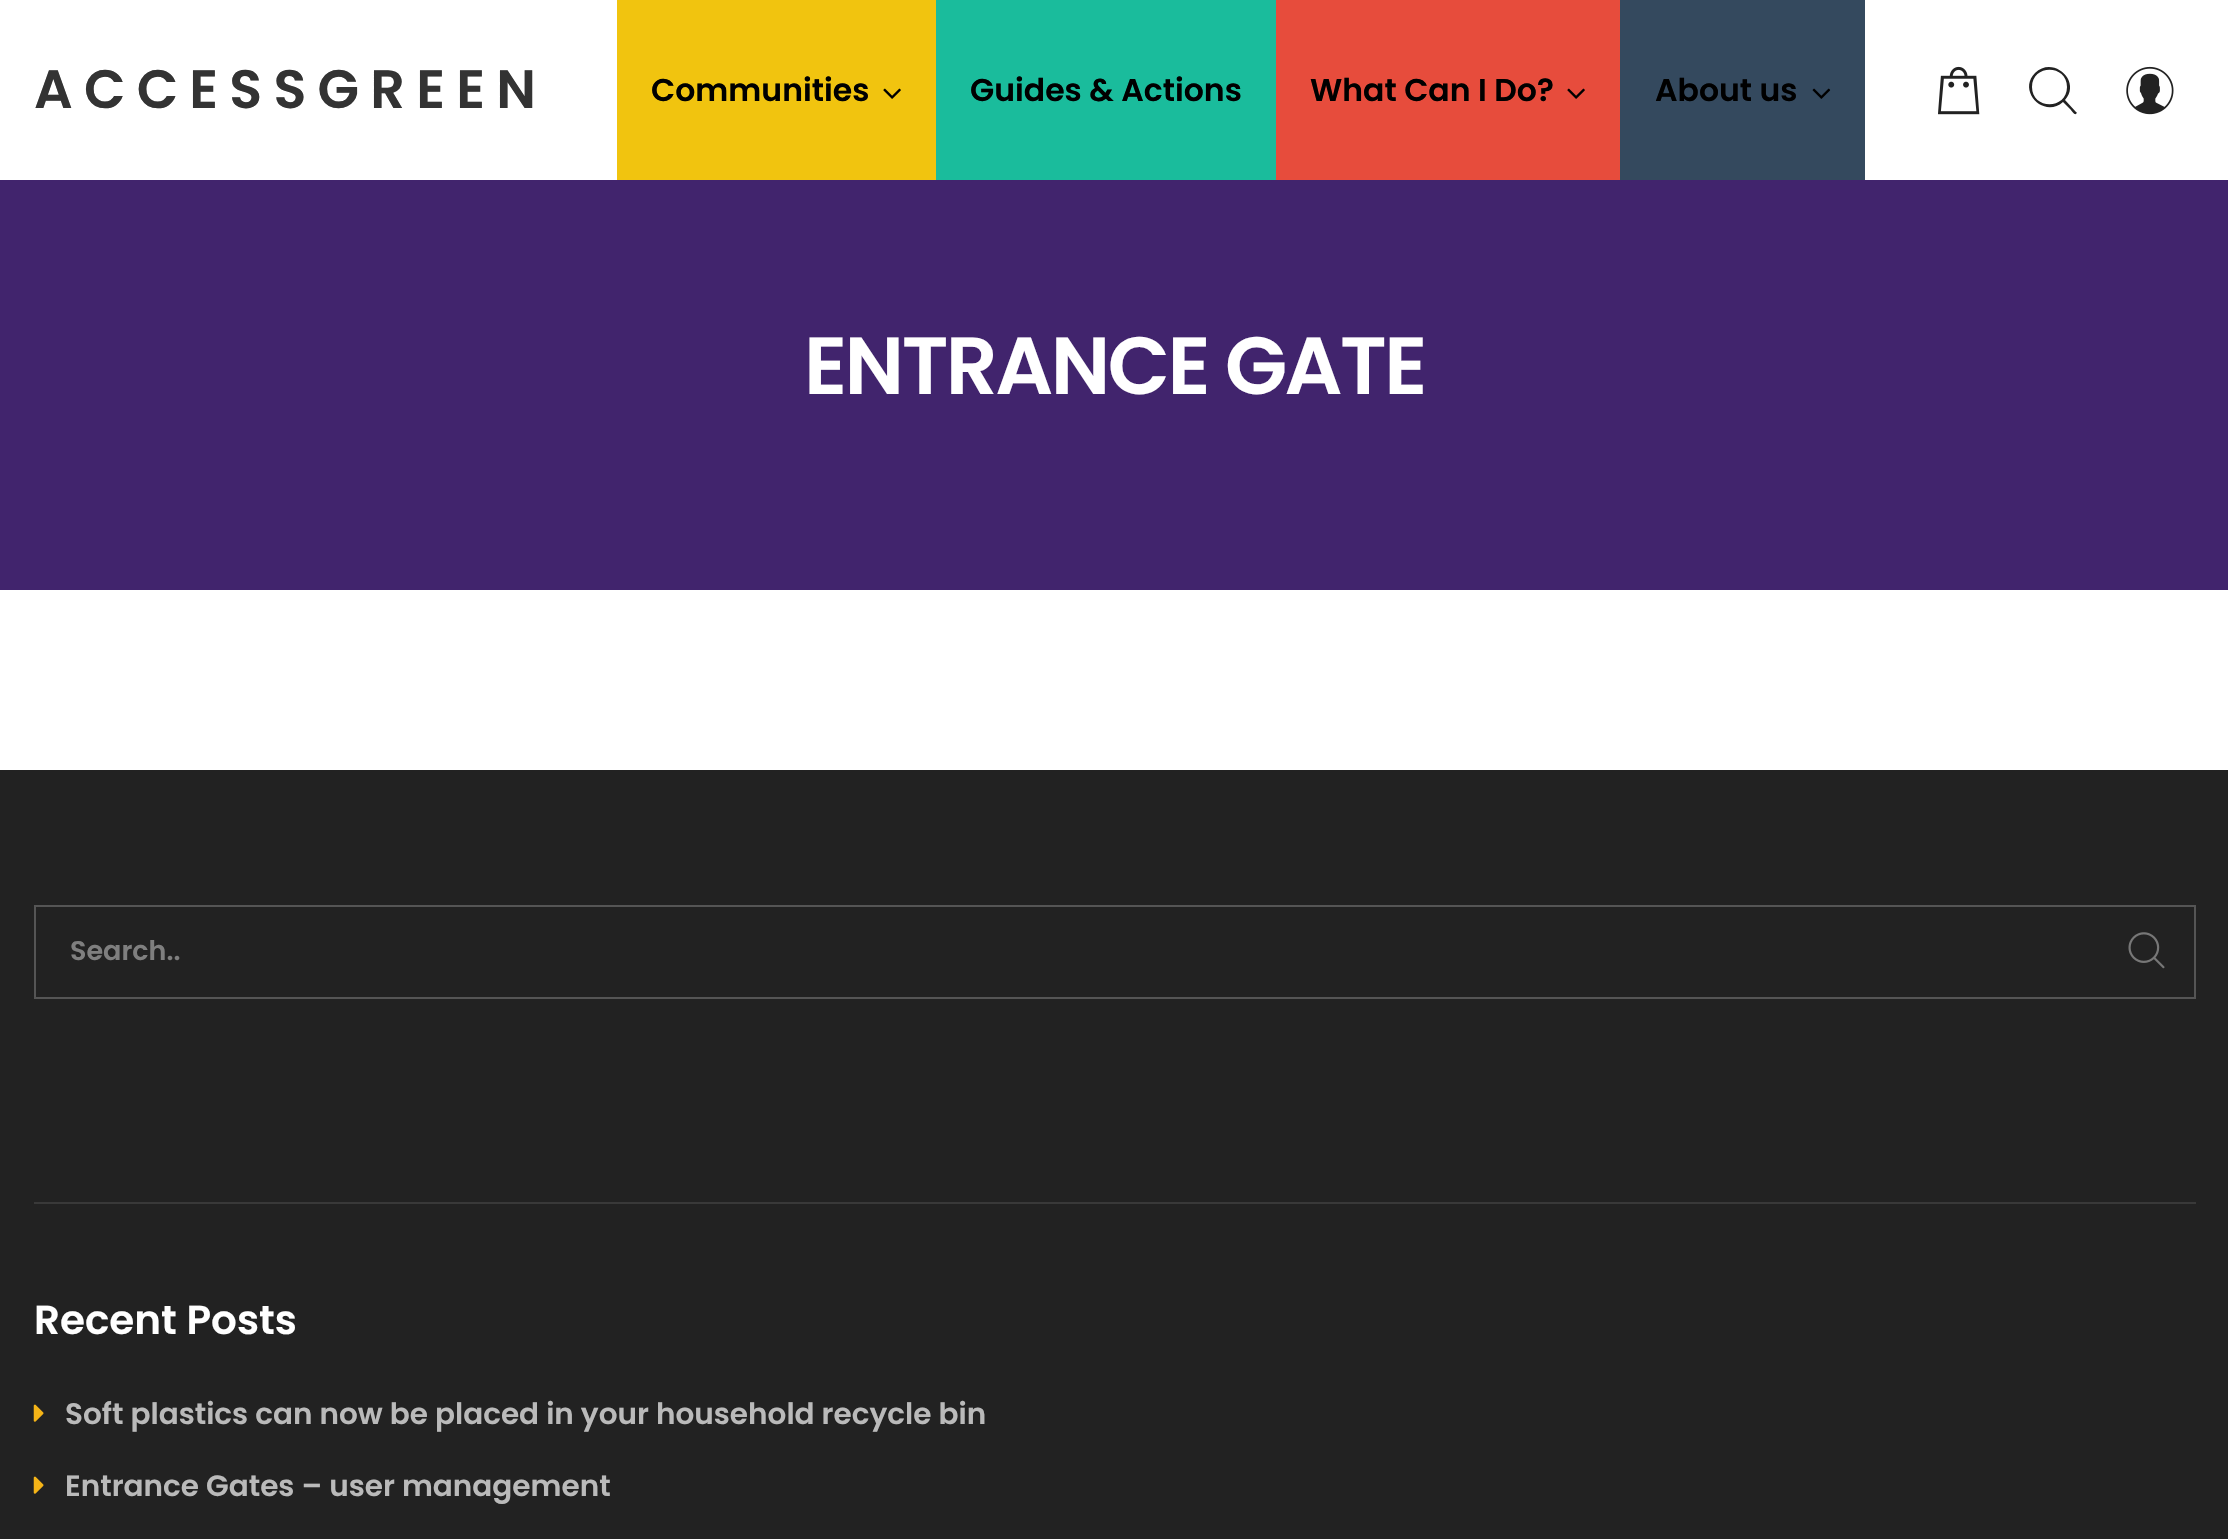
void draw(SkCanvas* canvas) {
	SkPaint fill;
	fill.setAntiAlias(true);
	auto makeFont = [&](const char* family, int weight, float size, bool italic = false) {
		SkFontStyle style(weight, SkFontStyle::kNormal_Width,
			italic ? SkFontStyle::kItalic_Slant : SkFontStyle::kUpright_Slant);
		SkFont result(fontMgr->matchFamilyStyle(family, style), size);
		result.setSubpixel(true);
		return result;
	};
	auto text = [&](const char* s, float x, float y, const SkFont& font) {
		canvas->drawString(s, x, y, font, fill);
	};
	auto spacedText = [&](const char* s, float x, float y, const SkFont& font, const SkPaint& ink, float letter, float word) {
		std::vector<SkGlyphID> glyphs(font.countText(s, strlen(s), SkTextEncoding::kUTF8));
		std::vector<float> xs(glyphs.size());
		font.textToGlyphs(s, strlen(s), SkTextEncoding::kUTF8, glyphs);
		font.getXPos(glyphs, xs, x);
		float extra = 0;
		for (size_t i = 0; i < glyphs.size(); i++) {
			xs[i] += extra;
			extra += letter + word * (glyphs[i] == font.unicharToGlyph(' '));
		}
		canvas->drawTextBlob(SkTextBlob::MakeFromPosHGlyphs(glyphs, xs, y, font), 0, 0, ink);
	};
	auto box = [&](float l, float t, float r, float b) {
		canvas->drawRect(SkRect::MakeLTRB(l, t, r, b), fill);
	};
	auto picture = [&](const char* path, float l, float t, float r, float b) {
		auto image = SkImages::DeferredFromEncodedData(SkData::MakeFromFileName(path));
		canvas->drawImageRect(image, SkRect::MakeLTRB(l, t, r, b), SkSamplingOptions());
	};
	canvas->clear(0xFFFFFFFF);
	fill.setColor(0xFFF1C40F);
	box(617, 0, 936, 180);
	picture("image0.png", 883, 88, 901, 99);
	fill.setColor(0xFF1ABC9C);
	box(936, 0, 1276, 180);
	fill.setColor(0xFFE74C3C);
	box(1276, 0, 1620, 180);
	picture("image1.png", 1567, 88, 1585, 99);
	fill.setColor(0xFF34495E);
	box(1620, 0, 1865, 180);
	picture("image2.png", 1812, 88, 1831, 99);
	picture("image3.png", 1938, 66, 1980, 115);
	fill.setColor(0xFF222222);
	canvas->drawPath(SkPathBuilder().moveTo(2076, 112).lineTo(2065, 100).cubicTo(2082, 81, 2053, 55, 2035, 73).cubicTo(2017, 91, 2044, 119, 2063, 102).lineTo(2071, 110).cubicTo(2071, 110, 2074, 115, 2076, 114).cubicTo(2077, 113, 2077, 112, 2076, 112).close().moveTo(2032, 87).cubicTo(2032, 64, 2067, 64, 2067, 87).cubicTo(2067, 110, 2032, 110, 2032, 87).close().detach(), fill);
	picture("image4.png", 2126, 66, 2174, 115);
	fill.setColor(0xFF41246D);
	box(0, 180, 2228, 590);
	fill.setColor(0xFF222222);
	box(0, 770, 2228, 1539);
	fill.setStyle(SkPaint::kStroke_Style);
	fill.setStrokeWidth(2);
	fill.setColor(0xFF555555);
	canvas->drawRect(SkRect::MakeLTRB(35, 906, 2195, 998), fill);
	picture("image5.png", 2128, 932, 2165, 969);
	fill.setStyle(SkPaint::kFill_Style);
	fill.setColor(0xFF393939);
	box(34, 1202, 2196, 1204);
	picture("image6.png", 33, 1404, 44, 1422);
	picture("image6.png", 33, 1476, 44, 1494);
	auto font1 = makeFont("Poppins", 600, 54);
	fill.setColor(0xFF333333);
	spacedText("ACCESSGREEN", 34, 108, font1, fill, 11.25f, 0);
	auto font2 = makeFont("Poppins", 600, 31.5f);
	fill.setColor(0xFF000000);
	text("Communities", 651, 101, font2);
	text("Guides & Actions", 970, 101, font2);
	text("What Can I Do?", 1310, 101, font2);
	text("About us", 1655, 101, font2);
	auto font3 = makeFont("Poppins", 600, 81);
	fill.setColor(0xFFFFFFFF);
	spacedText("ENTRANCE GATE", 804, 394, font3, fill, -2.5f, 0);
	auto font4 = makeFont("Poppins", 600, 27);
	fill.setColor(0xFF7F7F7F);
	text("Search..", 70, 960, font4);
	auto font5 = makeFont("Poppins", 600, 40.5f);
	fill.setColor(0xFFFFFFFF);
	text("Recent Posts", 34, 1334, font5);
	auto font6 = makeFont("Poppins", 600, 29.5f);
	fill.setColor(0xFFBABABA);
	text("Soft plastics can now be placed in your household recycle bin", 65, 1424, font6);
	text("Entrance Gates – user management", 65, 1496, font6);
}
